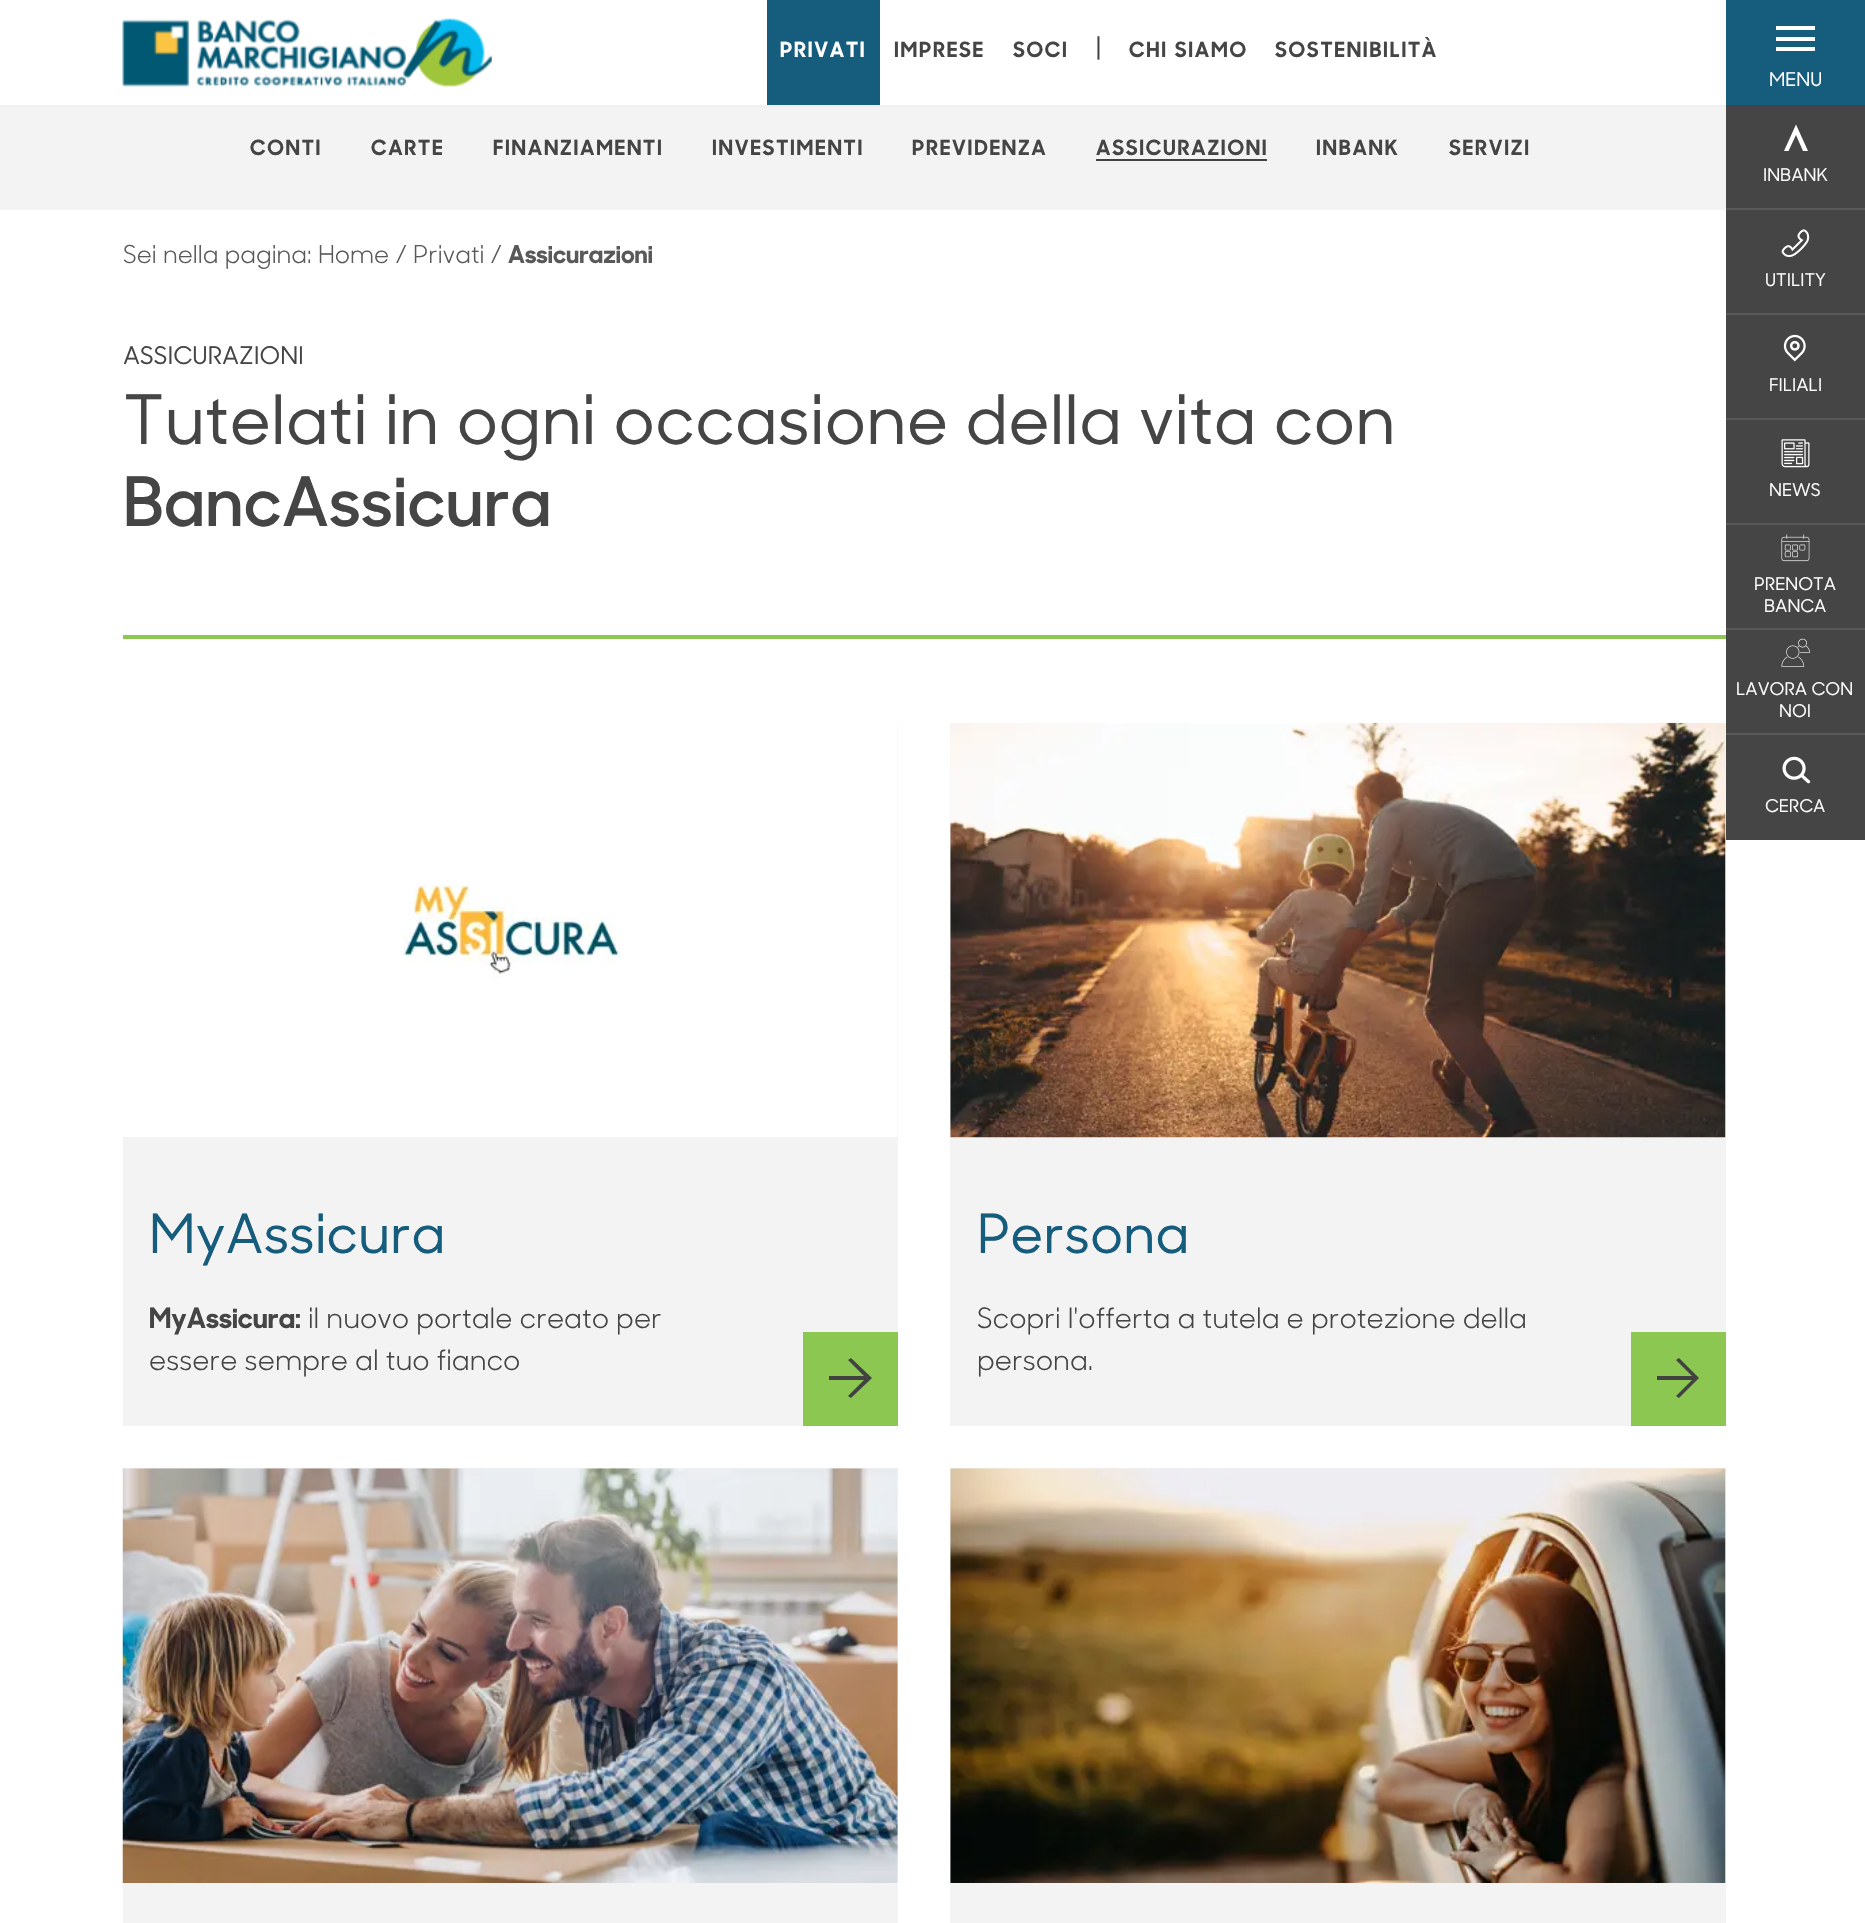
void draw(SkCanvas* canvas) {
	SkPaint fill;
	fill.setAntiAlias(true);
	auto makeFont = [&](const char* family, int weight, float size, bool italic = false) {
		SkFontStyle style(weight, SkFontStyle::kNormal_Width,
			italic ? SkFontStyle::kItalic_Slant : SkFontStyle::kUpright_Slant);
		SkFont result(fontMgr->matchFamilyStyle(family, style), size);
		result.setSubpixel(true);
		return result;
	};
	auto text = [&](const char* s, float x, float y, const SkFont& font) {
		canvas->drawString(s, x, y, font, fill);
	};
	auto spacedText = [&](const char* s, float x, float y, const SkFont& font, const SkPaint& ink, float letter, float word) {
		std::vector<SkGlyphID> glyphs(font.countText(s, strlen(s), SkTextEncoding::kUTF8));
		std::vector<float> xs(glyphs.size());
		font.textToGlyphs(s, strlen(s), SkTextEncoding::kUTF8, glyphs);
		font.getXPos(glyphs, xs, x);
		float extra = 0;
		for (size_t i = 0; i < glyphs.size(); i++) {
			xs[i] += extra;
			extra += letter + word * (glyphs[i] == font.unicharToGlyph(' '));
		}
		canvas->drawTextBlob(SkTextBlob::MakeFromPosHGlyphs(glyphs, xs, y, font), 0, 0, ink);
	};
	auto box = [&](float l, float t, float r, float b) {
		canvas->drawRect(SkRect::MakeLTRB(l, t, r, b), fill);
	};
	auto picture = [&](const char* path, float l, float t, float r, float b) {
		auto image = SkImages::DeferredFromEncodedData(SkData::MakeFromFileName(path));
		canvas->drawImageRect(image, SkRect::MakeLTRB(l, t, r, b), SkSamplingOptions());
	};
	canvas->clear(0xFFFFFFFF);
	picture("image0.png", 122, 18, 492, 87);
	fill.setColor(0xFF165C7D);
	box(767, 0, 880, 105);
	box(1726, 0, 1865, 105);
	fill.setColor(0xFFFFFFFF);
	box(1776, 26, 1815, 30);
	box(1776, 37, 1815, 41);
	box(1776, 47, 1815, 51);
	fill.setColor(0xFF454545);
	box(1726, 105, 1865, 208);
	fill.setColor(0xFF595959);
	box(1726, 208, 1865, 210);
	fill.setColor(0xFFFFFFFF);
	canvas->drawPath(SkPathBuilder().moveTo(1796, 124.5f).lineTo(1784, 151).lineTo(1788.5f, 151).lineTo(1796, 135).lineTo(1803, 151).lineTo(1808, 151).close().detach(), fill);
	fill.setColor(0xFF454545);
	box(1726, 210, 1865, 313);
	fill.setColor(0xFF595959);
	box(1726, 313, 1865, 315);
	picture("image1.png", 1781, 229, 1810, 258);
	fill.setColor(0xFF454545);
	box(1726, 315, 1865, 418);
	fill.setColor(0xFF595959);
	box(1726, 418, 1865, 420);
	picture("image2.png", 1783, 334, 1806, 362);
	fill.setColor(0xFF454545);
	box(1726, 420, 1865, 523);
	fill.setColor(0xFF595959);
	box(1726, 523, 1865, 525);
	picture("image3.png", 1781, 439, 1810, 468);
	fill.setColor(0xFF454545);
	box(1726, 525, 1865, 628);
	fill.setColor(0xFF595959);
	box(1726, 628, 1865, 630);
	picture("image4.png", 1781, 534, 1810, 562);
	fill.setColor(0xFF454545);
	box(1726, 630, 1865, 733);
	fill.setColor(0xFF595959);
	box(1726, 733, 1865, 735);
	picture("image5.png", 1781, 638, 1810, 667);
	fill.setColor(0xFF454545);
	box(1726, 735, 1865, 840);
	picture("image6.png", 1782, 756, 1811, 784);
	fill.setColor(0xFFF4F3F3);
	box(0, 107, 1726, 210);
	fill.setColor(0xFFEFEFEF);
	box(0, 105, 1726, 107);
	fill.setColor(0xFF424242);
	box(1096, 159, 1267, 161);
	fill.setColor(0xFF8BC751);
	box(123, 635, 1726, 639);
	fill.setColor(0xFFF4F3F3);
	box(123, 723, 898, 1426);
	picture("image7.png", 123, 723, 898, 1137);
	fill.setColor(0xFF8BC751);
	box(803, 1332, 898, 1426);
	fill.setColor(0xFF424242);
	canvas->drawPath(SkPathBuilder().moveTo(864, 1380).lineTo(829, 1380).lineTo(829, 1376).lineTo(864, 1376).lineTo(848, 1360).lineTo(851, 1358).lineTo(872, 1378).lineTo(851, 1398).lineTo(848, 1396).close().detach(), fill);
	fill.setColor(0xFFF4F3F3);
	box(950, 723, 1726, 1426);
	picture("image8.png", 950, 722, 1726, 1138);
	fill.setColor(0xFF8BC751);
	box(1631, 1332, 1726, 1426);
	fill.setColor(0xFF424242);
	canvas->drawPath(SkPathBuilder().moveTo(1692, 1380).lineTo(1657, 1380).lineTo(1657, 1376).lineTo(1692, 1376).lineTo(1676, 1360).lineTo(1679, 1358).lineTo(1699, 1378).lineTo(1679, 1398).lineTo(1676, 1396).close().detach(), fill);
	fill.setColor(0xFFF4F3F3);
	box(123, 1468, 898, 1923);
	picture("image9.png", 122, 1468, 898, 1883);
	box(950, 1468, 1726, 1923);
	picture("image10.png", 950, 1468, 1726, 1883);
	auto font1 = makeFont("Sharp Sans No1", 700, 21);
	fill.setColor(0xFFFFFFFF);
	spacedText("PRIVATI", 780, 57, font1, fill, 1.75f, 0);
	fill.setColor(0xFF454545);
	spacedText("IMPRESE", 894, 57, font1, fill, 1.75f, 0);
	spacedText("SOCI", 1013, 57, font1, fill, 1.75f, 0);
	auto font2 = makeFont("Sharp Sans No1", 500, 24.25f);
	text("|", 1096, 54, font2);
	spacedText("CHI SIAMO", 1129, 57, font1, fill, 1.75f, 0);
	spacedText("SOSTENIBILITÀ", 1275, 57, font1, fill, 1.75f, 0);
	auto font3 = makeFont("Sharp Sans No1", 500, 19);
	fill.setColor(0xFFFFFFFF);
	text("MENU", 1769, 86, font3);
	auto font4 = makeFont("Sharp Sans No1", 500, 17.5f);
	text("INBANK", 1763, 181, font4);
	text("UTILITY", 1765, 286, font4);
	text("FILIALI", 1769, 391, font4);
	text("NEWS", 1769, 496, font4);
	text("PRENOTA", 1754, 590, font4);
	text("BANCA", 1764, 612, font4);
	text("LAVORA CON", 1736, 695, font4);
	text("NOI", 1779, 717, font4);
	text("CERCA", 1765, 812, font4);
	fill.setColor(0xFF454545);
	spacedText("CONTI", 250, 155, font1, fill, 1.75f, 0);
	spacedText("CARTE", 371, 155, font1, fill, 1.75f, 0);
	spacedText("FINANZIAMENTI", 493, 155, font1, fill, 1.75f, 0);
	spacedText("INVESTIMENTI", 712, 155, font1, fill, 1.75f, 0);
	spacedText("PREVIDENZA", 912, 155, font1, fill, 1.75f, 0);
	spacedText("ASSICURAZIONI", 1096, 155, font1, fill, 1.75f, 0);
	spacedText("INBANK", 1316, 155, font1, fill, 1.75f, 0);
	spacedText("SERVIZI", 1449, 155, font1, fill, 1.75f, 0);
	auto font5 = makeFont("Sharp Sans No1", 400, 24.6f);
	fill.setColor(0xFF595959);
	text("Sei nella pagina: Home / Privati /", 123, 263, font5);
	auto font6 = makeFont("Sharp Sans No1", 700, 24.6f);
	text("Assicurazioni", 508, 263, font6);
	fill.setColor(0xFF454545);
	text("ASSICURAZIONI", 123, 364, font2);
	auto font7 = makeFont("Sharp Sans No1", 500, 68);
	text("Tutelati in ogni occasione della vita con", 123, 444, font7);
	auto font8 = makeFont("Sharp Sans No1", 600, 68);
	text("BancAssicura", 123, 526, font8);
	auto font9 = makeFont("Sharp Sans No1", 500, 54);
	fill.setColor(0xFF165C7D);
	text("MyAssicura", 149, 1253, font9);
	auto font10 = makeFont("Sharp Sans No1", 700, 28);
	fill.setColor(0xFF454545);
	text("MyAssicura:", 149, 1328, font10);
	auto font11 = makeFont("Sharp Sans No1", 400, 28);
	text("il nuovo portale creato per", 308, 1328, font11);
	text("essere sempre al tuo fianco", 149, 1370, font11);
	fill.setColor(0xFF165C7D);
	text("Persona", 977, 1253, font9);
	fill.setColor(0xFF454545);
	text("Scopri l'offerta a tutela e protezione della", 977, 1328, font11);
	text("persona.", 977, 1370, font11);
}
